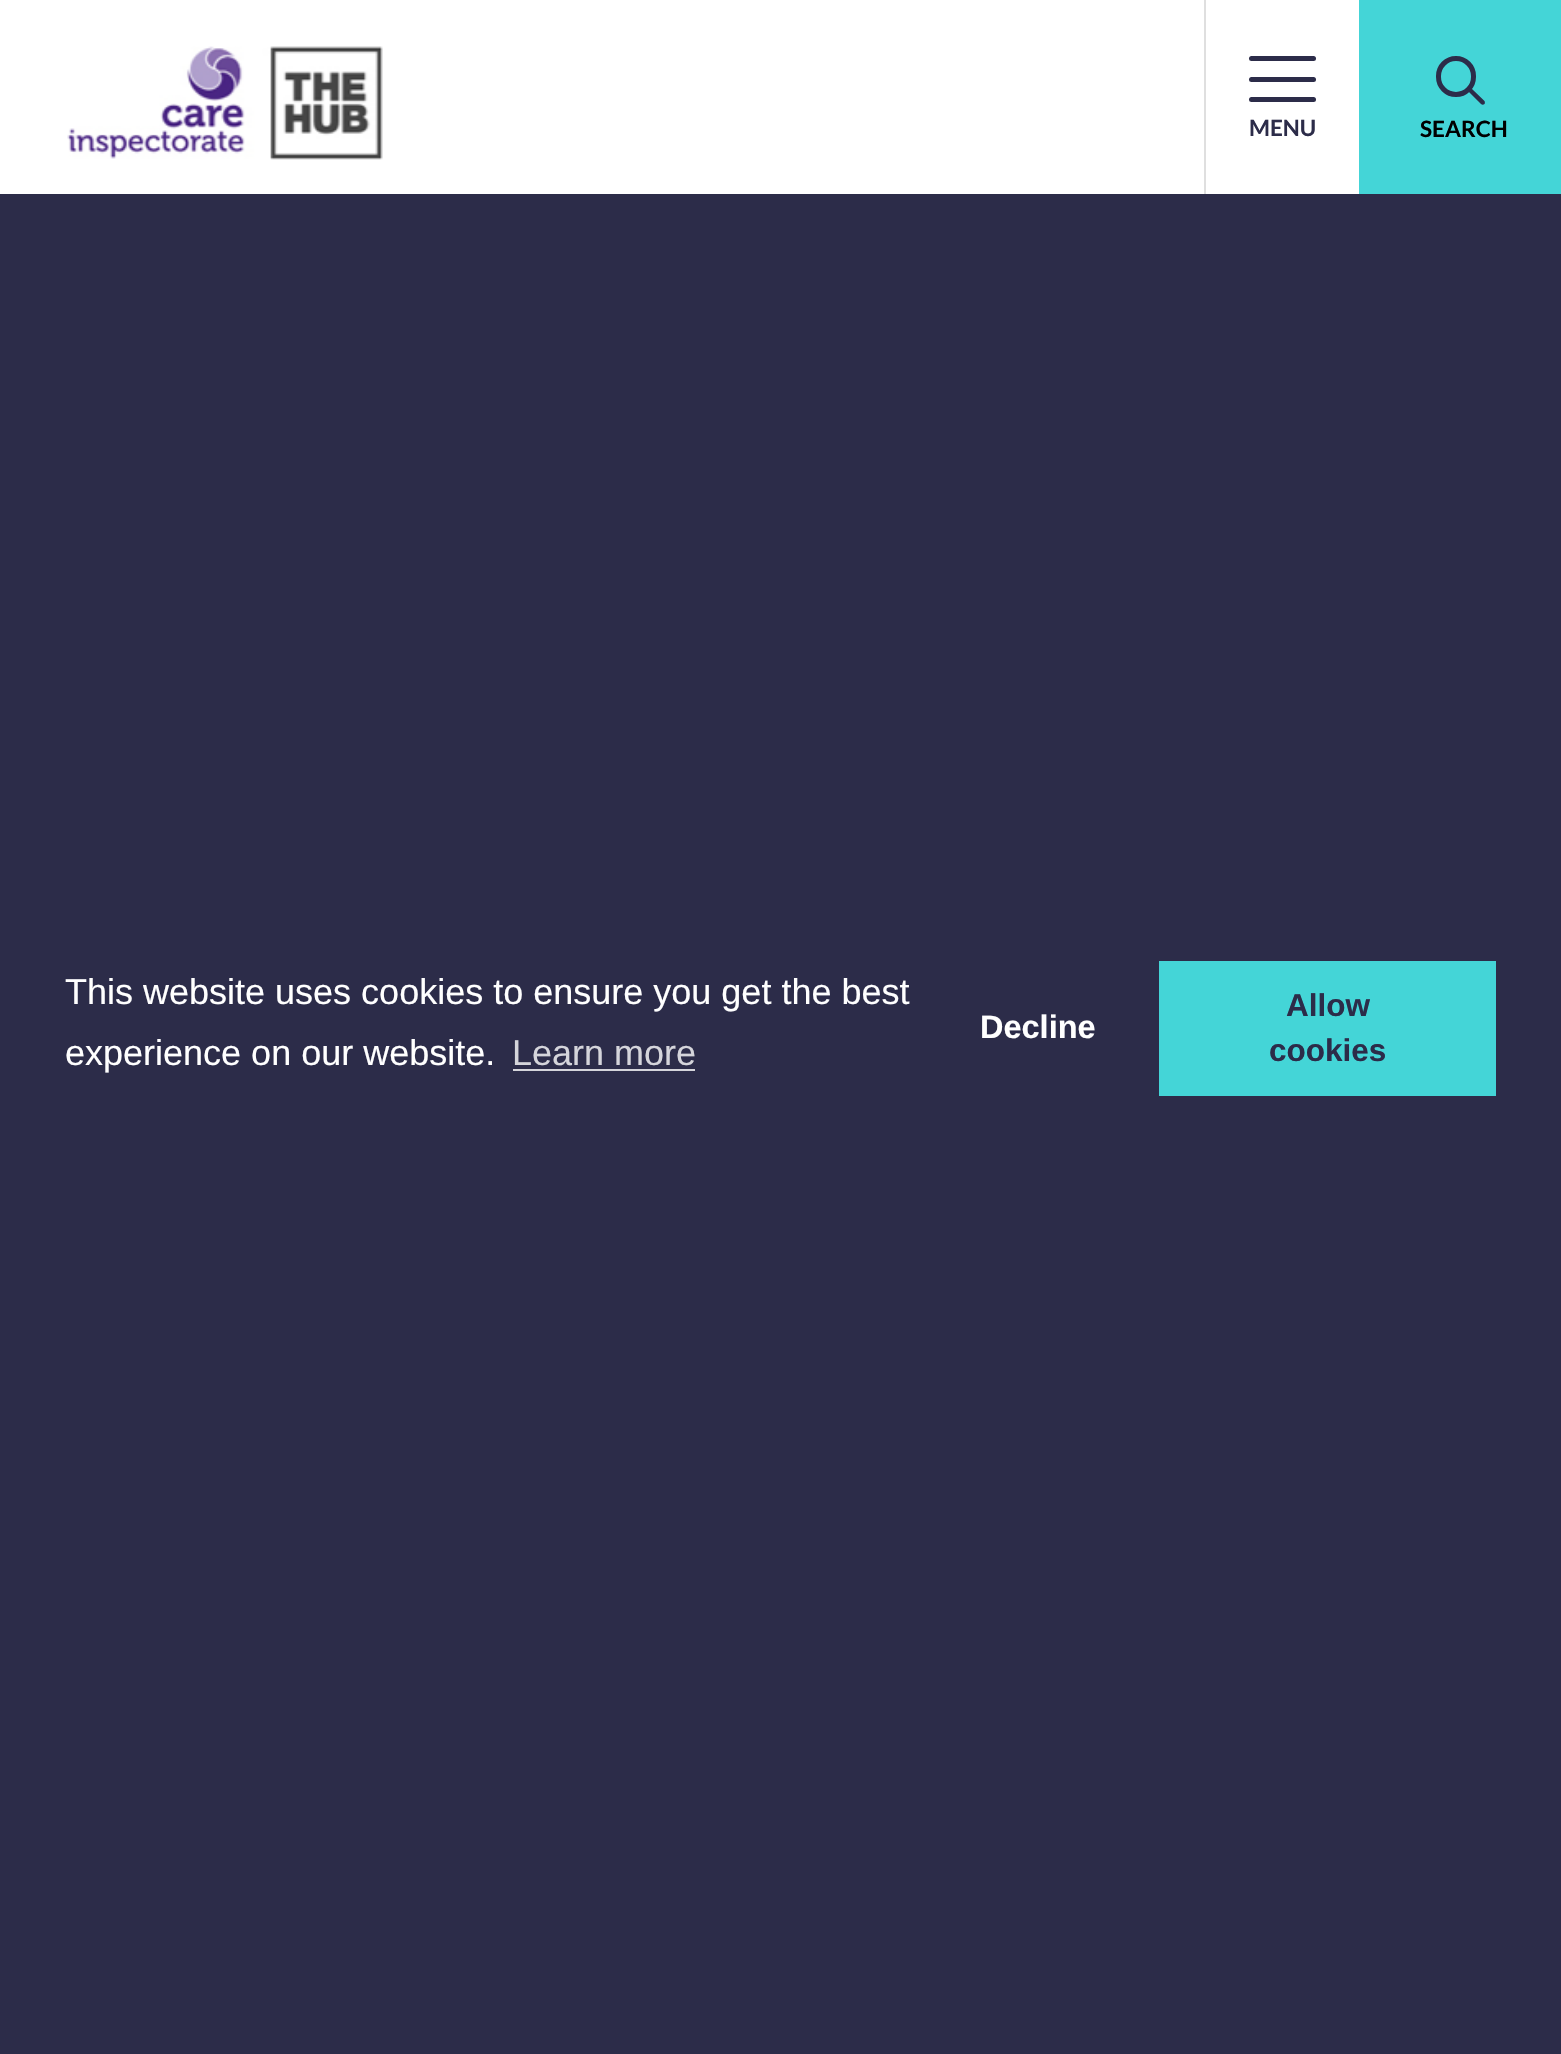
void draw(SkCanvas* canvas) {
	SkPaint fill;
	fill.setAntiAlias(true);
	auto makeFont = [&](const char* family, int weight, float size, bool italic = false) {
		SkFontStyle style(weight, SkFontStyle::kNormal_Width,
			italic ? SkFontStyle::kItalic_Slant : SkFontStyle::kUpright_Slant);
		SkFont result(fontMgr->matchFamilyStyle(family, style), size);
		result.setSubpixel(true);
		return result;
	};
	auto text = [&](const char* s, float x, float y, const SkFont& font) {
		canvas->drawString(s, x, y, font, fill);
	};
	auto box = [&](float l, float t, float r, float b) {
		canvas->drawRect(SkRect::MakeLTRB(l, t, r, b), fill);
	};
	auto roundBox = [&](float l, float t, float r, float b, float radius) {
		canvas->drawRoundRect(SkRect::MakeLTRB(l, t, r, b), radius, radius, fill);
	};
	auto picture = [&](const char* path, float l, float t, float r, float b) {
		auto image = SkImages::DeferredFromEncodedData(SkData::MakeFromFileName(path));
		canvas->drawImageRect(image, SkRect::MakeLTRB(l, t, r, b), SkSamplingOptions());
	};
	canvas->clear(0xFF2C2C49);
	fill.setColor(0xFFFFFFFF);
	box(0, 0, 1359, 194);
	picture("image0.png", 67, 46, 383, 160);
	fill.setColor(0xFFDFDFDF);
	box(1204, 0, 1206, 194);
	fill.setColor(0xFF2C2C49);
	roundBox(1249, 56, 1316, 61, 2.5f);
	roundBox(1249, 77, 1316, 82, 2.5f);
	roundBox(1249, 97, 1316, 102, 2.5f);
	fill.setColor(0xFF44D5D7);
	box(1359, 0, 1561, 194);
	fill.setStyle(SkPaint::kStroke_Style);
	fill.setStrokeWidth(5);
	fill.setColor(0xFF2C2C49);
	canvas->drawRoundRect(SkRect::MakeLTRB(1438.5f, 58.5f, 1473.5f, 94.5f), 17.5f, 17.5f, fill);
	fill.setStyle(SkPaint::kFill_Style);
	canvas->drawPath(SkPathBuilder().moveTo(1471.5f, 88.5f).lineTo(1484.5f, 101).cubicTo(1485, 102, 1485, 103.5f, 1484.5f, 104).cubicTo(1483.5f, 105, 1482, 105, 1481, 104).lineTo(1468.5f, 91.5f).cubicTo(1467.5f, 90.5f, 1467.5f, 89, 1468.5f, 88.5f).cubicTo(1469.5f, 87.5f, 1470.5f, 87.5f, 1471.5f, 88.5f).close().detach(), fill);
	fill.setColor(0xFFD5D5DB);
	box(513, 1069, 695, 1071);
	fill.setColor(0xFF44D5D7);
	box(1159, 961, 1496, 1096);
	auto font1 = makeFont("Lato", 700, 22.5f);
	fill.setColor(0xFF2C2C49);
	text("MENU", 1249, 136, font1);
	fill.setColor(0xFF000000);
	text("SEARCH", 1420, 137, font1);
	auto font2 = makeFont("Liberation Sans", 400, 36);
	fill.setColor(0xFFFFFFFF);
	text("This website uses cookies to ensure you get the best", 65, 1004, font2);
	text("experience on our website.", 65, 1065, font2);
	fill.setColor(0xFFD5D5DB);
	text("Learn more", 512, 1065, font2);
	auto font3 = makeFont("Liberation Sans", 700, 32.5f);
	fill.setColor(0xFFFFFFFF);
	text("Decline", 980, 1038, font3);
	auto font4 = makeFont("Liberation Sans", 700, 31.5f);
	fill.setColor(0xFF2C2C49);
	text("Allow", 1286, 1016, font4);
	text("cookies", 1269, 1061, font4);
}
